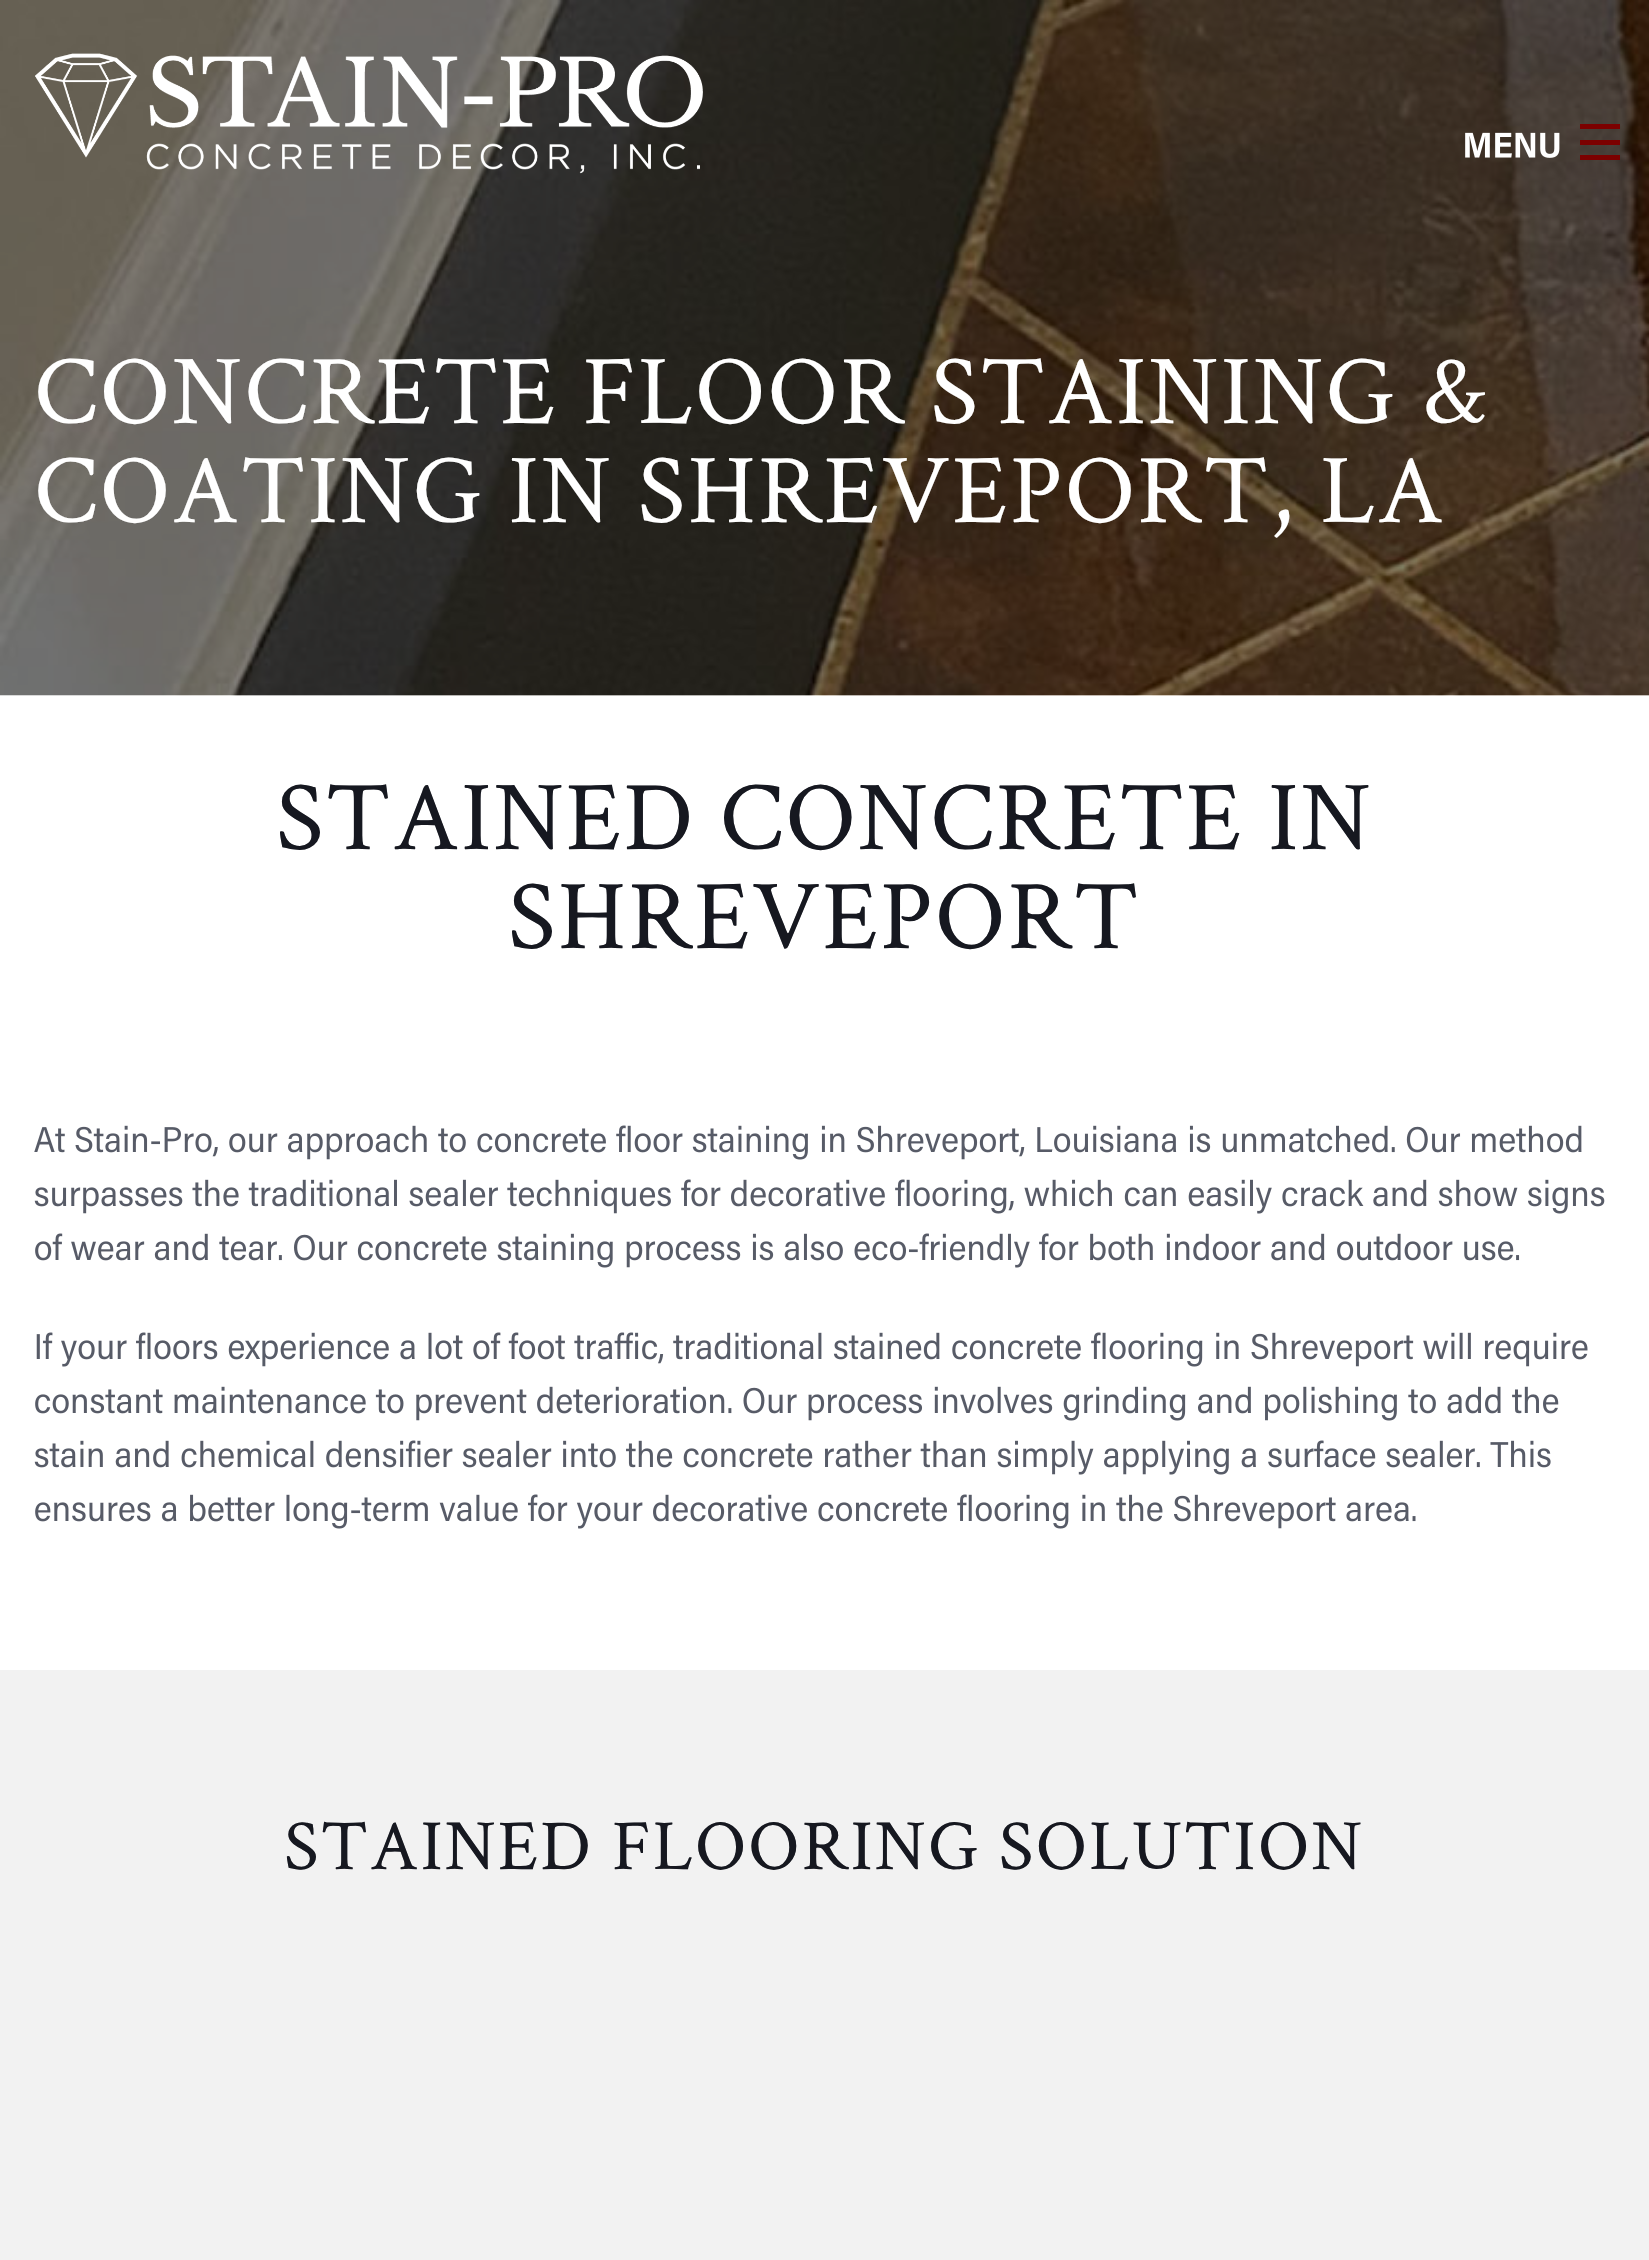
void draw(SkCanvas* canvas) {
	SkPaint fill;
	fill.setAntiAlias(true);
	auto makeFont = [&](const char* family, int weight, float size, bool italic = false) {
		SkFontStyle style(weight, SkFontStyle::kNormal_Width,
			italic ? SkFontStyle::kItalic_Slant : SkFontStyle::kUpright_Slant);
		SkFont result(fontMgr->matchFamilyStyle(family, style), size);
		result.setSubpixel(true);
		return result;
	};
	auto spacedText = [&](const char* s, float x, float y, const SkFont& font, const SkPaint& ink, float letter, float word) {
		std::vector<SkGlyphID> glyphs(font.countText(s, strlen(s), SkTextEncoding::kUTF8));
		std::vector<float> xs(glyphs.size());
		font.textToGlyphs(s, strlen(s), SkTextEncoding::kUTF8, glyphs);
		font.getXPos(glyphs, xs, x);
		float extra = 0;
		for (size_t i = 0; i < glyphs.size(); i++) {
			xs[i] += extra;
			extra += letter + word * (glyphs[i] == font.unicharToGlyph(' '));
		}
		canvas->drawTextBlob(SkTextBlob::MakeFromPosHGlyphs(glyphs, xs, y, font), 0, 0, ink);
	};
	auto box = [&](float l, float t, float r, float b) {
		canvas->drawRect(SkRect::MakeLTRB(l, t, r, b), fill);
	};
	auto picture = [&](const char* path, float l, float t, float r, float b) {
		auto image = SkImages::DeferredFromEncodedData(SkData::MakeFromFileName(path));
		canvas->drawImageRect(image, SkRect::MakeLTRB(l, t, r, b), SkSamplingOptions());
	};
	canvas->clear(0xFFFFFFFF);
	picture("image2.png", 0, 0, 1649, 696);
	picture("image0.png", 35, 53, 703, 174);
	picture("image1.png", 1465, 132, 1560, 158);
	fill.setColor(0xFF7C0000);
	box(1580, 155, 1620, 160);
	box(1580, 140, 1620, 145);
	box(1580, 124, 1620, 129);
	picture("image3.png", 34, 1125, 1582, 1160);
	picture("image4.png", 34, 1179, 1605, 1214);
	picture("image5.png", 35, 1233, 1520, 1268);
	picture("image6.png", 36, 1332, 1588, 1367);
	picture("image7.png", 35, 1386, 1559, 1421);
	picture("image8.png", 34, 1440, 1551, 1475);
	picture("image9.png", 35, 1494, 1416, 1529);
	fill.setColor(0xFFF2F2F2);
	box(0, 1670, 1649, 2260);
	auto font1 = makeFont("Crimson Text", 400, 99);
	fill.setColor(0xFFFFFFFF);
	spacedText("CONCRETE FLOOR STAINING &", 34, 423, font1, fill, 2.25f, 0);
	spacedText("COATING IN SHREVEPORT, LA", 34, 522, font1, fill, 2.25f, 0);
	fill.setColor(0xFF161820);
	spacedText("STAINED CONCRETE IN", 276, 849, font1, fill, 2.25f, 0);
	spacedText("SHREVEPORT", 508, 948, font1, fill, 2.25f, 0);
	auto font2 = makeFont("Crimson Text", 400, 72);
	spacedText("STAINED FLOORING SOLUTION", 284, 1869, font2, fill, 2.25f, 0);
}
